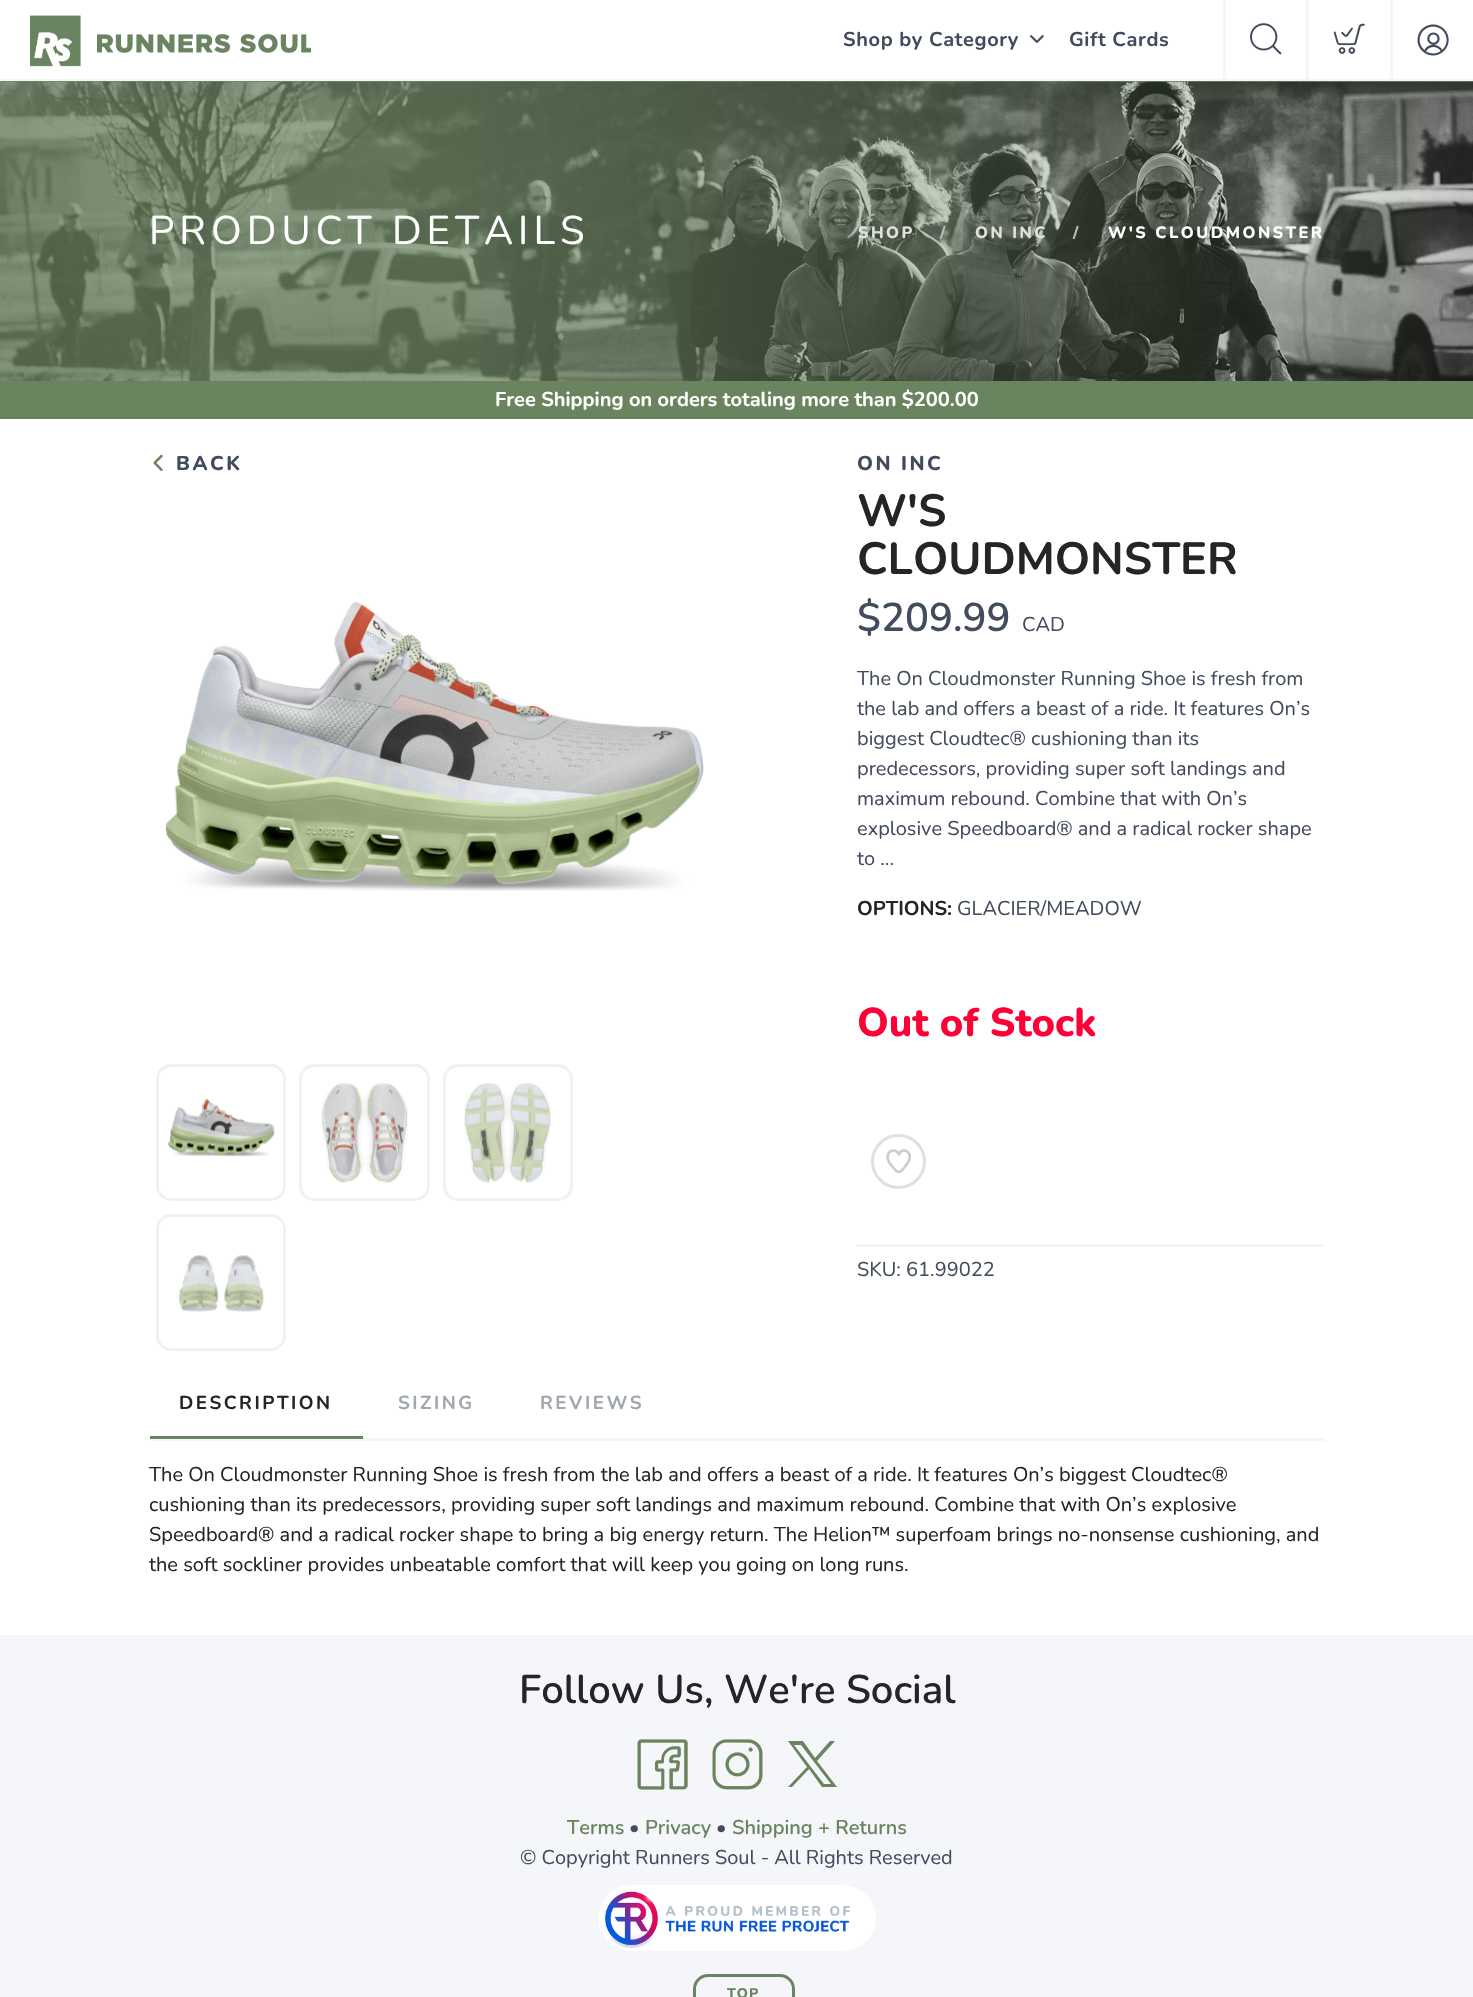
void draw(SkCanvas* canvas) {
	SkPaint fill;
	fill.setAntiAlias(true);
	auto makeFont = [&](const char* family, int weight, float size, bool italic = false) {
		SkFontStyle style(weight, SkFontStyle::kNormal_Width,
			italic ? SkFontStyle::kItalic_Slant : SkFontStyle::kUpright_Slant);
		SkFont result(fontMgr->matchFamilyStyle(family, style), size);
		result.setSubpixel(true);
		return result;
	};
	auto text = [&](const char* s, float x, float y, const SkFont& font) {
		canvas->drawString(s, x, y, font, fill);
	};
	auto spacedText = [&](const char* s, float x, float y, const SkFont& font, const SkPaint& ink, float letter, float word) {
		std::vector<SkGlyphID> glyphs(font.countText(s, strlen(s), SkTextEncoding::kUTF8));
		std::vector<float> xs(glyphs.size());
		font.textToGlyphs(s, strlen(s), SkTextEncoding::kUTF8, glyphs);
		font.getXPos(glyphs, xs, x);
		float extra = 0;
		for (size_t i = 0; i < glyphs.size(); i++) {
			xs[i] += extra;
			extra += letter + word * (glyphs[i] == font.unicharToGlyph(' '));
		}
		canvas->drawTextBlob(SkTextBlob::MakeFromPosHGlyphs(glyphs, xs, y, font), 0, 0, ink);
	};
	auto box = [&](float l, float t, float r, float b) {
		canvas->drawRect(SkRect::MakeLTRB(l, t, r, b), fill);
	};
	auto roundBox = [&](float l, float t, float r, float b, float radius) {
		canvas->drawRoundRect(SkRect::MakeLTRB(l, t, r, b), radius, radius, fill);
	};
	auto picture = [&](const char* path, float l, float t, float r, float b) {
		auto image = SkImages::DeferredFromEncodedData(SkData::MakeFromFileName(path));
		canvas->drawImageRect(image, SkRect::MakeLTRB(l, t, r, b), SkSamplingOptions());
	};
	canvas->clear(0xFFFFFFFF);
	fill.setColor(0xFFF5F6FA);
	box(0, 79, 1473, 81);
	picture("image0.png", 30, 15, 312, 67);
	picture("image1.png", 1030, 35, 1044, 43);
	box(1223, 0, 1226, 81);
	picture("image2.png", 1250, 23, 1282, 55);
	box(1306, 0, 1309, 81);
	picture("image3.png", 1333, 23, 1365, 54);
	box(1390, 0, 1393, 81);
	picture("image4.png", 1417, 24, 1449, 56);
	fill.setColor(0xFF6A845F);
	box(0, 81, 1473, 82);
	picture("image5.png", 0, 81, 1473, 381);
	{
		const SkColor colors[] = {0xB36A845F, 0x126A845F};
		const float stops[] = {0.3f, 1};
		const SkPoint ends[] = {{0, 231}, {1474, 231}};
		fill.setShader(SkGradientShader::MakeLinear(ends, colors, stops, 2, SkTileMode::kClamp));
		fill.setAlpha(255);
	}
	box(0, 81, 1473, 381);
	fill.setShader(nullptr);
	fill.setColor(0xFF6A845F);
	box(0, 381, 1473, 419);
	picture("image6.png", 153, 454, 163, 471);
	picture("image7.png", 165, 601, 704, 891);
	fill.setStyle(SkPaint::kStroke_Style);
	fill.setStrokeWidth(3);
	fill.setColor(0xFFEFF1F5);
	canvas->drawRoundRect(SkRect::MakeLTRB(157.5f, 1065.5f, 284.5f, 1199.5f), 13.5f, 13.5f, fill);
	picture("image8.png", 168, 1098, 275, 1157);
	canvas->drawRoundRect(SkRect::MakeLTRB(300.5f, 1065.5f, 428.5f, 1199.5f), 13.5f, 13.5f, fill);
	picture("image9.png", 321, 1083, 408, 1183);
	canvas->drawRoundRect(SkRect::MakeLTRB(444.5f, 1065.5f, 571.5f, 1199.5f), 13.5f, 13.5f, fill);
	picture("image10.png", 464, 1083, 551, 1183);
	canvas->drawRoundRect(SkRect::MakeLTRB(157.5f, 1215.5f, 284.5f, 1349.5f), 13.5f, 13.5f, fill);
	picture("image11.png", 178, 1255, 264, 1312);
	fill.setColor(0xFFE0E0E0);
	canvas->drawCircle(898.5f, 1161.5f, 26, fill);
	picture("image12.png", 886, 1149, 911, 1174);
	fill.setStyle(SkPaint::kFill_Style);
	fill.setColor(0xFFF5F6FA);
	box(856, 1244, 1324, 1247);
	box(150, 1438, 1325, 1441);
	fill.setColor(0xFF6A845F);
	box(150, 1436, 363, 1439);
	fill.setColor(0xFFF5F6FA);
	box(0, 1635, 1473, 1997);
	picture("image13.png", 637, 1739, 688, 1790);
	picture("image14.png", 712, 1739, 763, 1790);
	fill.setColor(0xFF6A845F);
	canvas->drawPath(SkPathBuilder().moveTo(788, 1741).lineTo(807, 1767).lineTo(788, 1787).lineTo(792, 1787).lineTo(809, 1769).lineTo(822, 1787).lineTo(837, 1787).lineTo(817, 1761).lineTo(835, 1741).lineTo(830, 1741).lineTo(815, 1758).lineTo(803, 1741).close().moveTo(794, 1745).lineTo(801, 1745).lineTo(831, 1784).lineTo(824, 1784).close().detach(), fill);
	fill.setColor(0xFFFFFFFF);
	roundBox(598, 1885, 876, 1951, 33);
	picture("image15.png", 604, 1891, 850, 1948);
	fill.setStyle(SkPaint::kStroke_Style);
	fill.setColor(0xFF6A845F);
	canvas->drawRoundRect(SkRect::MakeLTRB(694.5f, 1975.5f, 793.5f, 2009.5f), 13.5f, 13.5f, fill);
	auto font1 = makeFont("Nunito", 700, 20);
	fill.setStyle(SkPaint::kFill_Style);
	fill.setColor(0xFF434C5E);
	spacedText("Shop by Category", 843, 46, font1, fill, 0.6f, 0);
	spacedText("Gift Cards", 1069, 46, font1, fill, 0.6f, 0);
	auto font2 = makeFont("Nunito", 400, 40);
	fill.setColor(0xFFFFFFFF);
	spacedText("PRODUCT DETAILS", 149, 244, font2, fill, 5, 0);
	auto font3 = makeFont("Nunito", 800, 16.25f);
	fill.setColor(0xFFDEE0DD);
	spacedText("SHOP", 858, 238, font3, fill, 2.5f, 0);
	fill.setColor(0xFFBBBBBB);
	spacedText("/", 940, 238, font3, fill, 2.5f, 0);
	fill.setColor(0xFFDEE0DD);
	spacedText("ON INC", 975, 238, font3, fill, 2.5f, 0);
	fill.setColor(0xFFBBBBBB);
	spacedText("/", 1073, 238, font3, fill, 2.5f, 0);
	fill.setColor(0xFFFFFFFF);
	spacedText("W'S CLOUDMONSTER", 1108, 238, font3, fill, 2.5f, 0);
	text("Free Shipping on orders totaling more than $200.00", 495, 406, font1);
	auto font4 = makeFont("Nunito", 800, 20);
	fill.setColor(0xFF434C5E);
	spacedText("BACK", 176, 470, font4, fill, 2.5f, 0);
	spacedText("ON INC", 857, 470, font4, fill, 2.5f, 0);
	auto font5 = makeFont("Nunito", 700, 45);
	fill.setColor(0xFF252525);
	text("W'S", 857, 526, font5);
	text("CLOUDMONSTER", 857, 574, font5);
	auto font6 = makeFont("Nunito", 600, 40);
	fill.setColor(0xFF434C5E);
	text("$209.99", 857, 631, font6);
	auto font7 = makeFont("Nunito", 400, 20);
	text("CAD", 1022, 631, font7);
	text("The On Cloudmonster Running Shoe is fresh from", 857, 685, font7);
	text("the lab and offers a beast of a ride. It features On’s", 857, 715, font7);
	text("biggest Cloudtec® cushioning than its", 857, 745, font7);
	text("predecessors, providing super soft landings and", 857, 775, font7);
	text("maximum rebound. Combine that with On’s", 857, 805, font7);
	text("explosive Speedboard® and a radical rocker shape", 857, 835, font7);
	text("to ...", 857, 865, font7);
	fill.setColor(0xFF252525);
	text("OPTIONS:", 857, 915, font1);
	fill.setColor(0xFF434C5E);
	text("GLACIER/MEADOW", 957, 915, font7);
	auto font8 = makeFont("Nunito", 800, 40);
	fill.setColor(0xFFFF0036);
	text("Out of Stock", 857, 1036, font8);
	fill.setColor(0xFF434C5E);
	text("SKU: 61.99022", 857, 1276, font7);
	auto font9 = makeFont("Nunito", 700, 18.75f);
	fill.setColor(0xFF252525);
	spacedText("DESCRIPTION", 179, 1409, font9, fill, 2.5f, 0);
	fill.setColor(0xFFA1A6AF);
	spacedText("SIZING", 398, 1409, font9, fill, 2.5f, 0);
	spacedText("REVIEWS", 540, 1409, font9, fill, 2.5f, 0);
	fill.setColor(0xFF252525);
	text("The On Cloudmonster Running Shoe is fresh from the lab and offers a beast of a ride. It features On’s biggest Cloudtec®", 149, 1481, font7);
	text("cushioning than its predecessors, providing super soft landings and maximum rebound. Combine that with On’s explosive", 149, 1511, font7);
	text("Speedboard® and a radical rocker shape to bring a big energy return. The Helion™ superfoam brings no-nonsense cushioning, and", 149, 1541, font7);
	text("the soft sockliner provides unbeatable comfort that will keep you going on long runs.", 149, 1571, font7);
	text("Follow Us, We're Social", 519, 1703, font6);
	auto font10 = makeFont("Nunito", 600, 20);
	fill.setColor(0xFF6A845F);
	text("Terms", 567, 1834, font10);
	fill.setColor(0xFF434C5E);
	text("•", 629, 1834, font7);
	fill.setColor(0xFF6A845F);
	text("Privacy", 645, 1834, font10);
	fill.setColor(0xFF434C5E);
	text("•", 716, 1834, font7);
	fill.setColor(0xFF6A845F);
	text("Shipping + Returns", 732, 1834, font10);
	fill.setColor(0xFF434C5E);
	text("© Copyright Runners Soul - All Rights Reserved", 520, 1864, font7);
	auto font11 = makeFont("Nunito", 800, 14);
	fill.setColor(0xFF6A845F);
	spacedText("TOP", 727, 1998, font11, fill, 1, 0);
}
